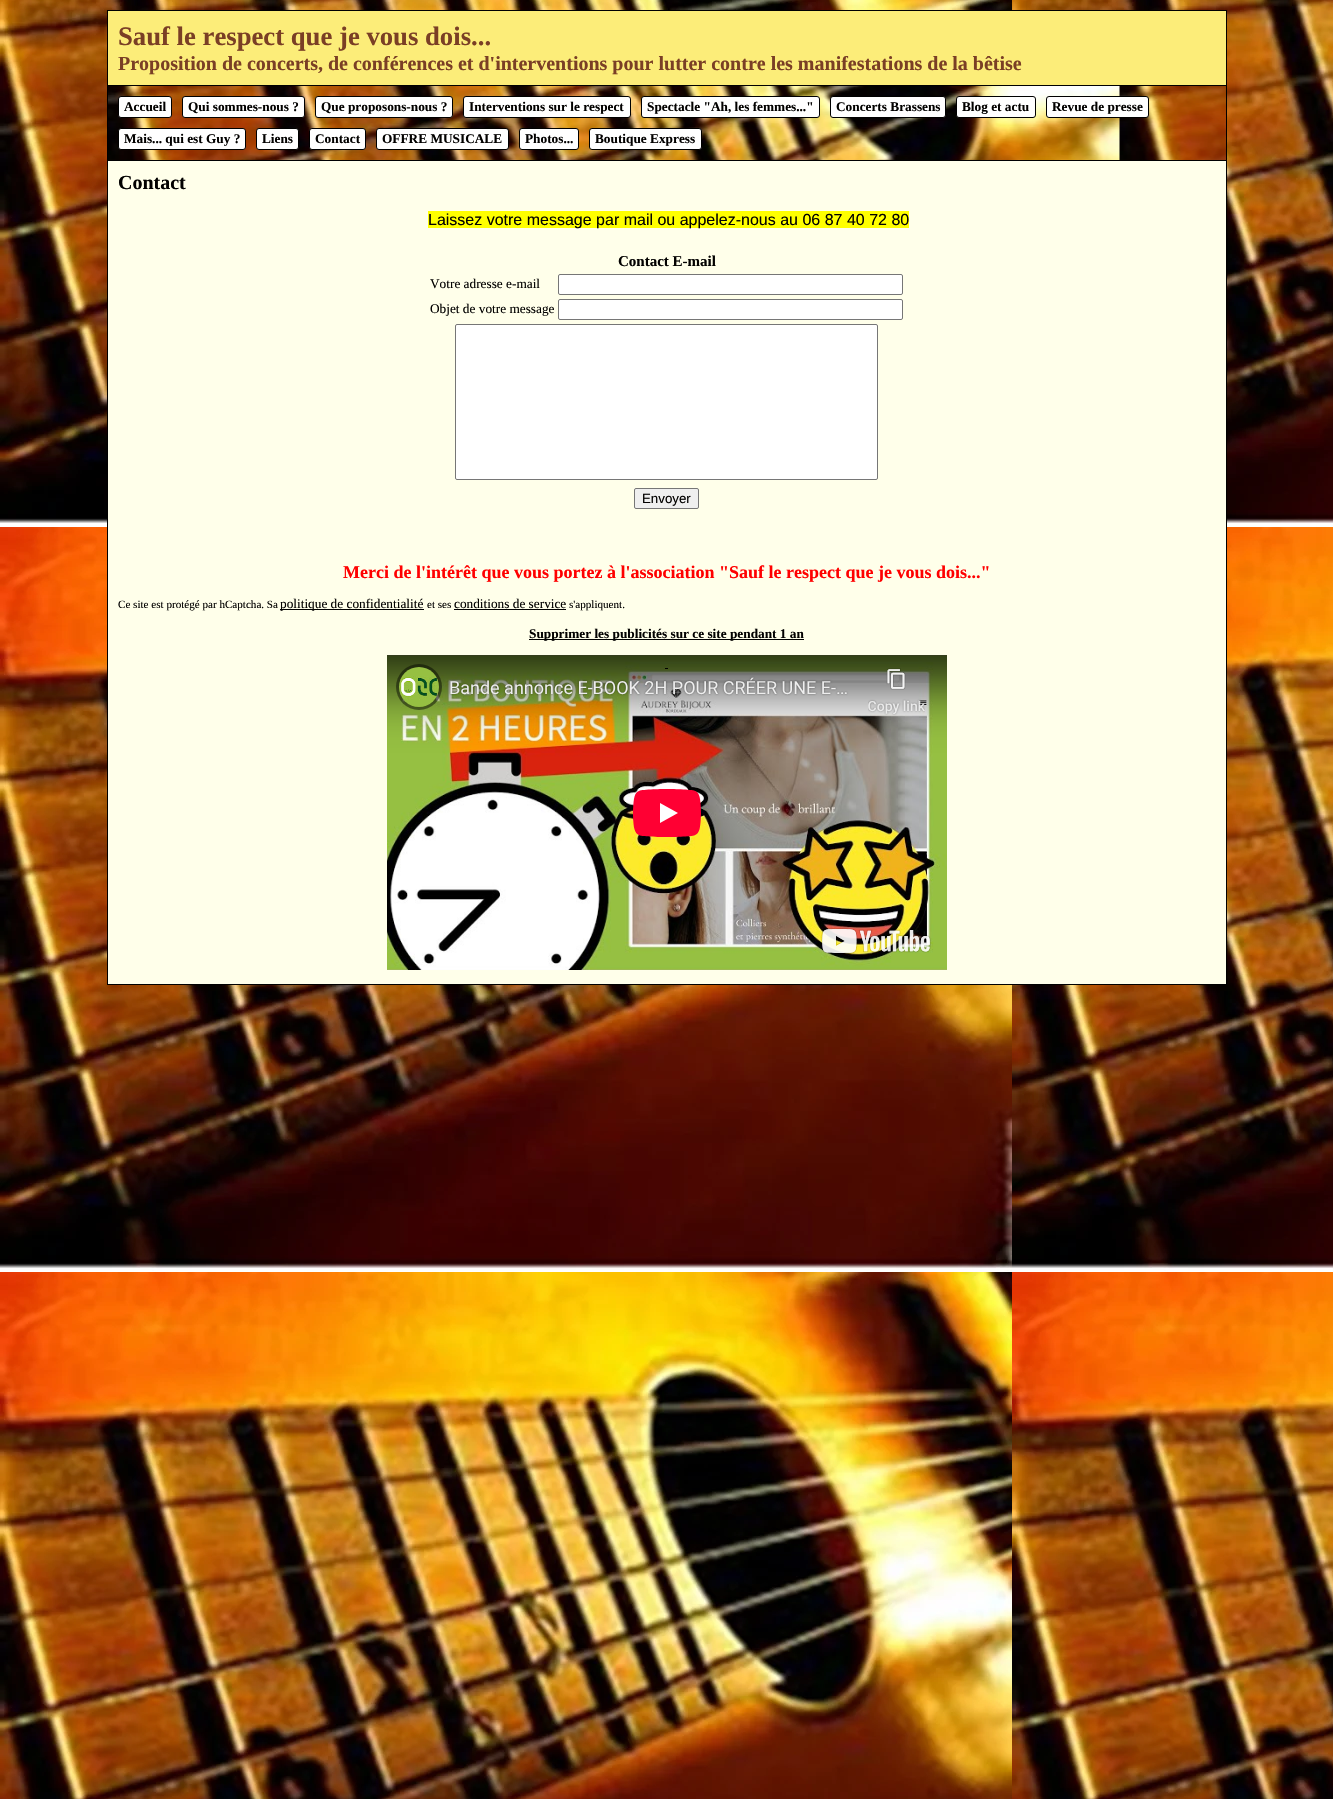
void draw(SkCanvas* canvas) {
	SkPaint fill;
	fill.setAntiAlias(true);
	auto makeFont = [&](const char* family, int weight, float size, bool italic = false) {
		SkFontStyle style(weight, SkFontStyle::kNormal_Width,
			italic ? SkFontStyle::kItalic_Slant : SkFontStyle::kUpright_Slant);
		SkFont result(fontMgr->matchFamilyStyle(family, style), size);
		result.setSubpixel(true);
		return result;
	};
	auto text = [&](const char* s, float x, float y, const SkFont& font) {
		canvas->drawString(s, x, y, font, fill);
	};
	auto box = [&](float l, float t, float r, float b) {
		canvas->drawRect(SkRect::MakeLTRB(l, t, r, b), fill);
	};
	auto picture = [&](const char* path, float l, float t, float r, float b) {
		auto image = SkImages::DeferredFromEncodedData(SkData::MakeFromFileName(path));
		canvas->drawImageRect(image, SkRect::MakeLTRB(l, t, r, b), SkSamplingOptions());
	};
	canvas->clear(0xFFFFFFFF);
	picture("image0.png", 0, 0, 1333, 1799);
	fill.setColor(0xFFFCED79);
	box(108, 11, 1226, 85);
	fill.setColor(0xFF000000);
	box(107, 10, 1227, 11);
	box(107, 85, 1227, 86);
	box(107, 160, 1227, 161);
	box(1226, 160, 1227, 985);
	box(1226, 85, 1227, 161);
	box(1226, 10, 1227, 86);
	box(107, 984, 1227, 985);
	box(107, 160, 108, 985);
	box(107, 85, 108, 161);
	box(107, 10, 108, 86);
	picture("image1.png", 108, 86, 1226, 160);
	fill.setColor(0xFFFFFFFF);
	canvas->drawRoundRect(SkRect::MakeLTRB(118.5f, 96.5f, 171.5f, 117.5f), 2.5f, 2.5f, fill);
	fill.setStyle(SkPaint::kStroke_Style);
	fill.setStrokeWidth(1);
	fill.setColor(0xFF000000);
	canvas->drawRoundRect(SkRect::MakeLTRB(118.5f, 96.5f, 171.5f, 117.5f), 2.5f, 2.5f, fill);
	fill.setStyle(SkPaint::kFill_Style);
	fill.setColor(0xFFFFFFFF);
	canvas->drawRoundRect(SkRect::MakeLTRB(182.5f, 96.5f, 304.5f, 117.5f), 2.5f, 2.5f, fill);
	fill.setStyle(SkPaint::kStroke_Style);
	fill.setColor(0xFF000000);
	canvas->drawRoundRect(SkRect::MakeLTRB(182.5f, 96.5f, 304.5f, 117.5f), 2.5f, 2.5f, fill);
	fill.setStyle(SkPaint::kFill_Style);
	fill.setColor(0xFFFFFFFF);
	canvas->drawRoundRect(SkRect::MakeLTRB(315.5f, 96.5f, 452.5f, 117.5f), 2.5f, 2.5f, fill);
	fill.setStyle(SkPaint::kStroke_Style);
	fill.setColor(0xFF000000);
	canvas->drawRoundRect(SkRect::MakeLTRB(315.5f, 96.5f, 452.5f, 117.5f), 2.5f, 2.5f, fill);
	fill.setStyle(SkPaint::kFill_Style);
	fill.setColor(0xFFFFFFFF);
	canvas->drawRoundRect(SkRect::MakeLTRB(463.5f, 96.5f, 630.5f, 117.5f), 2.5f, 2.5f, fill);
	fill.setStyle(SkPaint::kStroke_Style);
	fill.setColor(0xFF000000);
	canvas->drawRoundRect(SkRect::MakeLTRB(463.5f, 96.5f, 630.5f, 117.5f), 2.5f, 2.5f, fill);
	fill.setStyle(SkPaint::kFill_Style);
	fill.setColor(0xFFFFFFFF);
	canvas->drawRoundRect(SkRect::MakeLTRB(641.5f, 96.5f, 819.5f, 117.5f), 2.5f, 2.5f, fill);
	fill.setStyle(SkPaint::kStroke_Style);
	fill.setColor(0xFF000000);
	canvas->drawRoundRect(SkRect::MakeLTRB(641.5f, 96.5f, 819.5f, 117.5f), 2.5f, 2.5f, fill);
	fill.setStyle(SkPaint::kFill_Style);
	fill.setColor(0xFFFFFFFF);
	canvas->drawRoundRect(SkRect::MakeLTRB(830.5f, 96.5f, 945.5f, 117.5f), 2.5f, 2.5f, fill);
	fill.setStyle(SkPaint::kStroke_Style);
	fill.setColor(0xFF000000);
	canvas->drawRoundRect(SkRect::MakeLTRB(830.5f, 96.5f, 945.5f, 117.5f), 2.5f, 2.5f, fill);
	fill.setStyle(SkPaint::kFill_Style);
	fill.setColor(0xFFFFFFFF);
	canvas->drawRoundRect(SkRect::MakeLTRB(956.5f, 96.5f, 1035.5f, 117.5f), 2.5f, 2.5f, fill);
	fill.setStyle(SkPaint::kStroke_Style);
	fill.setColor(0xFF000000);
	canvas->drawRoundRect(SkRect::MakeLTRB(956.5f, 96.5f, 1035.5f, 117.5f), 2.5f, 2.5f, fill);
	fill.setStyle(SkPaint::kFill_Style);
	fill.setColor(0xFFFFFFFF);
	canvas->drawRoundRect(SkRect::MakeLTRB(1046.5f, 96.5f, 1148.5f, 117.5f), 2.5f, 2.5f, fill);
	fill.setStyle(SkPaint::kStroke_Style);
	fill.setColor(0xFF000000);
	canvas->drawRoundRect(SkRect::MakeLTRB(1046.5f, 96.5f, 1148.5f, 117.5f), 2.5f, 2.5f, fill);
	fill.setStyle(SkPaint::kFill_Style);
	fill.setColor(0xFFFFFFFF);
	canvas->drawRoundRect(SkRect::MakeLTRB(118.5f, 128.5f, 245.5f, 149.5f), 2.5f, 2.5f, fill);
	fill.setStyle(SkPaint::kStroke_Style);
	fill.setColor(0xFF000000);
	canvas->drawRoundRect(SkRect::MakeLTRB(118.5f, 128.5f, 245.5f, 149.5f), 2.5f, 2.5f, fill);
	fill.setStyle(SkPaint::kFill_Style);
	fill.setColor(0xFFFFFFFF);
	canvas->drawRoundRect(SkRect::MakeLTRB(256.5f, 128.5f, 298.5f, 149.5f), 2.5f, 2.5f, fill);
	fill.setStyle(SkPaint::kStroke_Style);
	fill.setColor(0xFF000000);
	canvas->drawRoundRect(SkRect::MakeLTRB(256.5f, 128.5f, 298.5f, 149.5f), 2.5f, 2.5f, fill);
	fill.setStyle(SkPaint::kFill_Style);
	fill.setColor(0xFFFFFFFF);
	canvas->drawRoundRect(SkRect::MakeLTRB(309.5f, 128.5f, 365.5f, 149.5f), 2.5f, 2.5f, fill);
	fill.setStyle(SkPaint::kStroke_Style);
	fill.setColor(0xFF000000);
	canvas->drawRoundRect(SkRect::MakeLTRB(309.5f, 128.5f, 365.5f, 149.5f), 2.5f, 2.5f, fill);
	fill.setStyle(SkPaint::kFill_Style);
	fill.setColor(0xFFFFFFFF);
	canvas->drawRoundRect(SkRect::MakeLTRB(376.5f, 128.5f, 508.5f, 149.5f), 2.5f, 2.5f, fill);
	fill.setStyle(SkPaint::kStroke_Style);
	fill.setColor(0xFF000000);
	canvas->drawRoundRect(SkRect::MakeLTRB(376.5f, 128.5f, 508.5f, 149.5f), 2.5f, 2.5f, fill);
	fill.setStyle(SkPaint::kFill_Style);
	fill.setColor(0xFFFFFFFF);
	canvas->drawRoundRect(SkRect::MakeLTRB(519.5f, 128.5f, 578.5f, 149.5f), 2.5f, 2.5f, fill);
	fill.setStyle(SkPaint::kStroke_Style);
	fill.setColor(0xFF000000);
	canvas->drawRoundRect(SkRect::MakeLTRB(519.5f, 128.5f, 578.5f, 149.5f), 2.5f, 2.5f, fill);
	fill.setStyle(SkPaint::kFill_Style);
	fill.setColor(0xFFFFFFFF);
	canvas->drawRoundRect(SkRect::MakeLTRB(589.5f, 128.5f, 701.5f, 149.5f), 2.5f, 2.5f, fill);
	fill.setStyle(SkPaint::kStroke_Style);
	fill.setColor(0xFF000000);
	canvas->drawRoundRect(SkRect::MakeLTRB(589.5f, 128.5f, 701.5f, 149.5f), 2.5f, 2.5f, fill);
	fill.setStyle(SkPaint::kFill_Style);
	fill.setColor(0xFFFFFFEA);
	box(108, 161, 1226, 984);
	fill.setColor(0xFFFFFF00);
	box(428, 211, 909, 228);
	fill.setColor(0xFFFFFFFF);
	canvas->drawRoundRect(SkRect::MakeLTRB(558.5f, 274.5f, 902.5f, 294.5f), 1.5f, 1.5f, fill);
	fill.setStyle(SkPaint::kStroke_Style);
	fill.setColor(0xFF767676);
	canvas->drawRoundRect(SkRect::MakeLTRB(558.5f, 274.5f, 902.5f, 294.5f), 1.5f, 1.5f, fill);
	fill.setStyle(SkPaint::kFill_Style);
	fill.setColor(0xFFFFFFFF);
	canvas->drawRoundRect(SkRect::MakeLTRB(558.5f, 299.5f, 902.5f, 319.5f), 1.5f, 1.5f, fill);
	fill.setStyle(SkPaint::kStroke_Style);
	fill.setColor(0xFF767676);
	canvas->drawRoundRect(SkRect::MakeLTRB(558.5f, 299.5f, 902.5f, 319.5f), 1.5f, 1.5f, fill);
	fill.setStyle(SkPaint::kFill_Style);
	fill.setColor(0xFFFFFFFF);
	canvas->drawRoundRect(SkRect::MakeLTRB(455.5f, 324.5f, 877.5f, 479.5f), 1.5f, 1.5f, fill);
	fill.setStyle(SkPaint::kStroke_Style);
	fill.setColor(0xFF767676);
	canvas->drawRoundRect(SkRect::MakeLTRB(455.5f, 324.5f, 877.5f, 479.5f), 1.5f, 1.5f, fill);
	fill.setStyle(SkPaint::kFill_Style);
	fill.setColor(0xFFEFEFEF);
	canvas->drawRoundRect(SkRect::MakeLTRB(634.5f, 488.5f, 698.5f, 508.5f), 1.5f, 1.5f, fill);
	fill.setStyle(SkPaint::kStroke_Style);
	fill.setColor(0xFF767676);
	canvas->drawRoundRect(SkRect::MakeLTRB(634.5f, 488.5f, 698.5f, 508.5f), 1.5f, 1.5f, fill);
	fill.setStyle(SkPaint::kFill_Style);
	fill.setColor(0xFF000000);
	box(280, 609, 424, 610);
	box(454, 609, 566, 610);
	box(529, 639, 804, 640);
	picture("image2.png", 387, 655, 947, 970);
	box(665, 668, 668, 669);
	auto font1 = makeFont("Liberation Serif", 700, 26.7f);
	fill.setColor(0xFF7A3F25);
	text("Sauf le respect que je vous dois...", 118, 45, font1);
	auto font2 = makeFont("Liberation Serif", 700, 20);
	text("Proposition de concerts, de conférences et d'interventions pour lutter contre les manifestations de la bêtise", 118, 70, font2);
	auto font3 = makeFont("Liberation Serif", 700, 13.3f);
	fill.setColor(0xFF020100);
	text("Accueil", 124, 111, font3);
	text("Qui sommes-nous ?", 188, 111, font3);
	text("Que proposons-nous ?", 321, 111, font3);
	text("Interventions sur le respect", 469, 111, font3);
	text("Spectacle \"Ah, les femmes...\"", 647, 111, font3);
	text("Concerts Brassens", 836, 111, font3);
	text("Blog et actu", 962, 111, font3);
	text("Revue de presse", 1052, 111, font3);
	text("Mais... qui est Guy ?", 124, 143, font3);
	text("Liens", 262, 143, font3);
	text("Contact", 315, 143, font3);
	text("OFFRE MUSICALE", 382, 143, font3);
	text("Photos...", 525, 143, font3);
	text("Boutique Express", 595, 143, font3);
	text("Contact", 118, 189, font2);
	auto font4 = makeFont("Liberation Sans", 400, 16);
	text("Laissez votre message par mail ou appelez-nous au 06 87 40 72 80", 428, 225, font4);
	auto font5 = makeFont("Liberation Serif", 700, 15);
	text("Contact E-mail", 618, 266, font5);
	auto font6 = makeFont("Liberation Serif", 400, 13.3f);
	text("Votre adresse e-mail", 430, 288, font6);
	text("Objet de votre message", 430, 313, font6);
	auto font7 = makeFont("Liberation Sans", 400, 13.3f);
	text("Envoyer", 642, 503, font7);
	auto font8 = makeFont("Liberation Serif", 700, 18);
	fill.setColor(0xFFFF0000);
	text("Merci de l'intérêt que vous portez à l'association \"Sauf le respect que je vous dois...\"", 343, 578, font8);
	auto font9 = makeFont("Liberation Serif", 400, 11.1f);
	fill.setColor(0xFF020100);
	text("Ce site est protégé par hCaptcha. Sa", 118, 608, font9);
	text("politique de confidentialité", 280, 608, font6);
	text("et ses", 427, 608, font9);
	text("conditions de service", 454, 608, font6);
	text("s'appliquent.", 569, 608, font9);
	text("Supprimer les publicités sur ce site pendant 1 an", 529, 638, font3);
}
